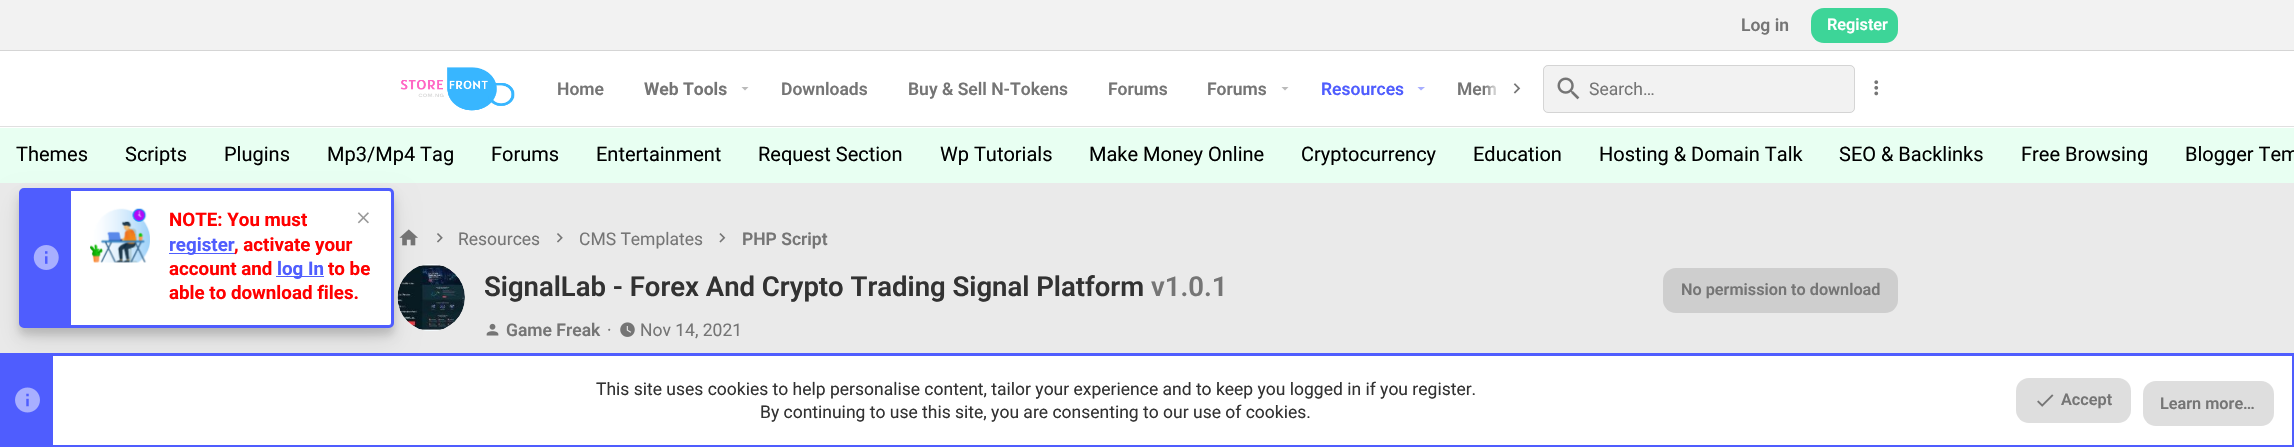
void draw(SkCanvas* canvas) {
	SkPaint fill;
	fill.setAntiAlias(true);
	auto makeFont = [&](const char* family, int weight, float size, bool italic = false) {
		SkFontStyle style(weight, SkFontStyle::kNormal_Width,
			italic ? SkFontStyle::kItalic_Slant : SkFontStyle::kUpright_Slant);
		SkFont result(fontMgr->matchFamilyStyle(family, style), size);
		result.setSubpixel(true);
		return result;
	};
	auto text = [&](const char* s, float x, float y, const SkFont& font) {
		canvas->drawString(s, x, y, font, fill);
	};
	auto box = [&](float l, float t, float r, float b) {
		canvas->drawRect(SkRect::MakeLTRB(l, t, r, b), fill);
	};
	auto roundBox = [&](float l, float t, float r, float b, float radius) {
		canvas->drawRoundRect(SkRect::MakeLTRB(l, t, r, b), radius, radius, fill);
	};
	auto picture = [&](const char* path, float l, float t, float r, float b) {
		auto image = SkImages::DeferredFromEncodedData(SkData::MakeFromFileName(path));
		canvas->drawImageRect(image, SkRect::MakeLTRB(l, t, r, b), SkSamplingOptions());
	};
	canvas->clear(0xFFEAEAEA);
	fill.setColor(0xFFF2F2F2);
	box(0, 0, 2294, 50);
	fill.setColor(0xFFD5D5D5);
	box(0, 50, 2294, 51);
	fill.setColor(0xFF3DD598);
	roundBox(1811, 8, 1898, 43, 13);
	fill.setColor(0xFFFFFFFF);
	box(0, 51, 2294, 128);
	fill.setColor(0xFFE0E0E0);
	box(0, 126, 2294, 127);
	picture("image0.png", 400, 67, 515, 111);
	fill.setColor(0xFFBABABA);
	canvas->drawPath(SkPathBuilder().moveTo(741.5f, 87).lineTo(745, 90.5f).lineTo(748.5f, 87).close().detach(), fill);
	canvas->drawPath(SkPathBuilder().moveTo(1281.5f, 87).lineTo(1285, 90.5f).lineTo(1288.5f, 87).close().detach(), fill);
	fill.setColor(0xFFA7AEFF);
	canvas->drawPath(SkPathBuilder().moveTo(1417.5f, 87).lineTo(1421, 90.5f).lineTo(1425, 87).close().detach(), fill);
	picture("image1.png", 1513, 83, 1521, 94);
	fill.setColor(0xFFF2F2F2);
	roundBox(1543, 65, 1855, 113, 5);
	fill.setStyle(SkPaint::kStroke_Style);
	fill.setStrokeWidth(1);
	fill.setColor(0x1F000000);
	canvas->drawRoundRect(SkRect::MakeLTRB(1543.5f, 65.5f, 1854.5f, 112.5f), 4.5f, 4.5f, fill);
	picture("image2.png", 1557, 77, 1580, 100);
	picture("image3.png", 1874, 80, 1879, 96);
	fill.setStyle(SkPaint::kFill_Style);
	fill.setColor(0xFFE8FFF2);
	box(0, 128, 2294, 183);
	picture("image4.png", 399, 229, 418, 246);
	picture("image5.png", 437, 233, 443, 243);
	picture("image5.png", 557, 233, 563, 243);
	picture("image6.png", 719, 233, 726, 243);
	fill.setColor(0xFFFFFFFF);
	canvas->drawCircle(431.5f, 297.5f, 33.5f, fill);
	picture("image7.png", 397, 264, 465, 331);
	fill.setColor(0xFFCECECE);
	roundBox(1663, 268, 1898, 313, 13);
	picture("image8.png", 486, 323, 499, 336);
	picture("image9.png", 620, 322, 635, 337);
	fill.setColor(0x26000000);
	fill.setMaskFilter(SkMaskFilter::MakeBlur(kNormal_SkBlurStyle, 4));
	canvas->drawRoundRect(SkRect::MakeLTRB(19, 195, 394, 335), 5, 5, fill);
	fill.setMaskFilter(nullptr);
	fill.setColor(0x17000000);
	fill.setMaskFilter(SkMaskFilter::MakeBlur(kNormal_SkBlurStyle, 12.5f));
	canvas->drawRoundRect(SkRect::MakeLTRB(19, 200, 394, 340), 5, 5, fill);
	fill.setMaskFilter(nullptr);
	fill.setColor(0xFFFFFFFF);
	canvas->drawRoundRect(SkRect::MakeLTRB(20.5f, 189.5f, 392.5f, 326.5f), 3.5f, 3.5f, fill);
	fill.setStyle(SkPaint::kStroke_Style);
	fill.setStrokeWidth(3);
	fill.setColor(0xFF4F5DFE);
	canvas->drawRoundRect(SkRect::MakeLTRB(20.5f, 189.5f, 392.5f, 326.5f), 3.5f, 3.5f, fill);
	fill.setStyle(SkPaint::kFill_Style);
	box(22, 191, 71, 325);
	picture("image10.png", 33, 245, 59, 270);
	picture("image11.png", 90, 208, 150, 263);
	picture("image12.png", 357, 212, 369, 224);
	box(169, 253, 235, 254);
	box(276, 276, 324, 277);
	fill.setColor(0xFFFFFFFF);
	box(53, 356, 2292, 445);
	fill.setStyle(SkPaint::kStroke_Style);
	fill.setColor(0xFF4F5DFE);
	canvas->drawRect(SkRect::MakeLTRB(1.5f, 354.5f, 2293.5f, 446.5f), fill);
	fill.setStyle(SkPaint::kFill_Style);
	box(3, 356, 53, 445);
	picture("image13.png", 15, 387, 40, 413);
	fill.setColor(0xFFDEDEDE);
	roundBox(2016, 378, 2131, 423, 13);
	picture("image14.png", 2037, 394, 2054, 407);
	roundBox(2143, 381, 2274, 426, 13);
	auto font1 = makeFont("Roboto", 600, 17.5f);
	fill.setColor(0xFF757575);
	text("Log in", 1741, 31, font1);
	auto font2 = makeFont("Roboto", 600, 16.25f);
	fill.setColor(0xFFFFFFFF);
	text("Register", 1827, 30, font2);
	fill.setColor(0xFF757575);
	text("Home", 557, 95, font1);
	auto font3 = makeFont("Roboto", 700, 17.5f);
	text("Web Tools", 644, 95, font3);
	text("Downloads", 781, 95, font1);
	text("Buy & Sell N-Tokens", 908, 95, font1);
	text("Forums", 1108, 95, font1);
	text("Forums", 1207, 95, font1);
	fill.setColor(0xFF4F5DFE);
	text("Resources", 1321, 95, font1);
	fill.setColor(0xFF757575);
	text("Mem", 1457, 95, font1);
	{
		const SkColor colors[] = {0x00FFFFFF, 0xFFFFFFFF};
		const float stops[] = {0, 0.33f};
		const SkPoint ends[] = {{1484, 89}, {1534, 89}};
		fill.setShader(SkGradientShader::MakeLinear(ends, colors, stops, 2, SkTileMode::kClamp));
		fill.setAlpha(255);
	}
	box(1484, 85, 1496, 95);
	auto font4 = makeFont("Roboto", 400, 17.5f);
	fill.setShader(nullptr);
	fill.setColor(0xFF757575);
	text("Search…", 1589, 95, font4);
	auto font5 = makeFont("Roboto", 400, 20);
	fill.setColor(0xFF000000);
	text("Themes", 16, 161, font5);
	text("Scripts", 125, 161, font5);
	text("Plugins", 224, 161, font5);
	text("Mp3/Mp4 Tag", 327, 161, font5);
	text("Forums", 491, 161, font5);
	text("Entertainment", 596, 161, font5);
	text("Request Section", 758, 161, font5);
	text("Wp Tutorials", 940, 161, font5);
	text("Make Money Online", 1089, 161, font5);
	text("Cryptocurrency", 1301, 161, font5);
	text("Education", 1473, 161, font5);
	text("Hosting & Domain Talk", 1599, 161, font5);
	text("SEO & Backlinks", 1839, 161, font5);
	text("Free Browsing", 2021, 161, font5);
	text("Blogger Tem", 2185, 161, font5);
	fill.setColor(0xFF757575);
	text("Resources", 458, 245, font4);
	text("CMS Templates", 579, 245, font4);
	text("PHP Script", 742, 245, font1);
	auto font6 = makeFont("Roboto", 600, 27.5f);
	fill.setColor(0xFF323232);
	text("SignalLab - Forex And Crypto Trading Signal Platform", 484, 296, font6);
	fill.setColor(0xFF757575);
	text("v1.0.1", 1151, 296, font6);
	text("No permission to download", 1681, 295, font2);
	text("Game Freak", 506, 336, font1);
	text("·", 607, 336, font4);
	text("Nov 14, 2021", 640, 336, font4);
	auto font7 = makeFont("Roboto", 700, 18.75f);
	fill.setColor(0xFFFF0000);
	text("NOTE: You must", 169, 226, font7);
	fill.setColor(0xFF4F5DFE);
	text("register", 169, 251, font7);
	fill.setColor(0xFFFF0000);
	text(", activate your", 234, 251, font7);
	text("account and", 169, 275, font7);
	fill.setColor(0xFF4F5DFE);
	text("log In", 277, 275, font7);
	fill.setColor(0xFFFF0000);
	text("to be", 328, 275, font7);
	text("able to download files.", 169, 299, font7);
	fill.setColor(0xFF323232);
	text("This site uses cookies to help personalise content, tailor your experience and to keep you logged in if you register.", 596, 395, font4);
	text("By continuing to use this site, you are consenting to our use of cookies.", 760, 418, font4);
	fill.setColor(0xFF757575);
	text("Accept", 2061, 405, font2);
	text("Learn more…", 2160, 409, font2);
}
